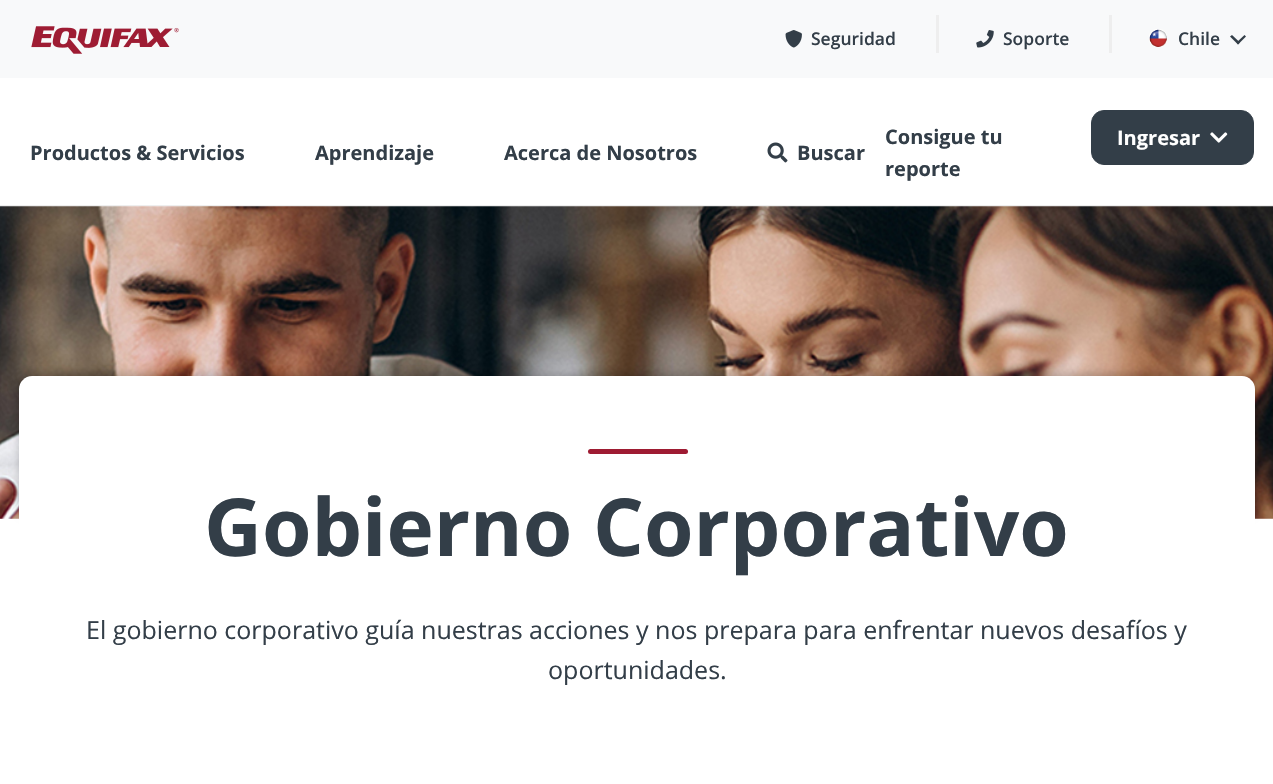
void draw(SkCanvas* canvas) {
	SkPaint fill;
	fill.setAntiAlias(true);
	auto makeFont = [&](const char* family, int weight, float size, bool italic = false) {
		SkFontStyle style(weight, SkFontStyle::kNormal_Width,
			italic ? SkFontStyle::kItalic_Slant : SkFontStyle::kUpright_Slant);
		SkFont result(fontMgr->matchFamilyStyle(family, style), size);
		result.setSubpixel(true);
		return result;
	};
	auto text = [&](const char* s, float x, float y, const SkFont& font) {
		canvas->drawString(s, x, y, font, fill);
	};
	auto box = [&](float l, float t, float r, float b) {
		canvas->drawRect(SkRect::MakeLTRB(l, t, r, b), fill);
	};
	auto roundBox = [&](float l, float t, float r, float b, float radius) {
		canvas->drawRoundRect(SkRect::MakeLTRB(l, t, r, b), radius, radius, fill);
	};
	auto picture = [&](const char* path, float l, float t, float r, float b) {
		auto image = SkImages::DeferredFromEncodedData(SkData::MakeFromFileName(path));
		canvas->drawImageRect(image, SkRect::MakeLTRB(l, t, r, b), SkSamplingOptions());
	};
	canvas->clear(0xFFFFFFFF);
	fill.setColor(0xFFF8F9FA);
	box(0, 0, 1273, 78);
	fill.setColor(0xFFEEEEEE);
	box(0, 205, 1273, 206);
	picture("image0.png", 31, 26, 179, 54);
	picture("image1.png", 785, 30, 802, 48);
	box(936, 15, 939, 53);
	picture("image2.png", 976, 30, 994, 48);
	box(1109, 15, 1112, 53);
	picture("image3.png", 1149, 29, 1167, 47);
	fill.setColor(0xFF333E48);
	canvas->drawPath(SkPathBuilder().moveTo(1246, 36.5f).lineTo(1238, 44.5f).lineTo(1236.5f, 42.5f).lineTo(1244.5f, 35).close().detach(), fill);
	canvas->drawPath(SkPathBuilder().moveTo(1240, 42.5f).lineTo(1238, 44.5f).lineTo(1230, 36.5f).lineTo(1232, 35).close().detach(), fill);
	picture("image4.png", 767, 142, 788, 163);
	canvas->drawRoundRect(SkRect::MakeLTRB(1091.5f, 110.5f, 1253.5f, 164.5f), 12.5f, 12.5f, fill);
	fill.setStyle(SkPaint::kStroke_Style);
	fill.setStrokeWidth(1);
	canvas->drawRoundRect(SkRect::MakeLTRB(1091.5f, 110.5f, 1253.5f, 164.5f), 12.5f, 12.5f, fill);
	picture("image5.png", 1210, 132, 1228, 143);
	picture("image6.png", 0, 206, 1273, 519);
	fill.setStyle(SkPaint::kFill_Style);
	fill.setColor(0x33000000);
	fill.setMaskFilter(SkMaskFilter::MakeBlur(kNormal_SkBlurStyle, 5));
	canvas->drawRoundRect(SkRect::MakeLTRB(19, 374, 1255, 516), 13, 13, fill);
	fill.setMaskFilter(nullptr);
	fill.setColor(0xFFFFFFFF);
	canvas->drawPath(SkPathBuilder().moveTo(32, 376).lineTo(1242, 376).cubicTo(1249, 376, 1255, 382, 1255, 389).lineTo(1255, 690).lineTo(19, 690).lineTo(19, 389).cubicTo(19, 382, 25, 376, 32, 376).close().detach(), fill);
	fill.setColor(0xFF9E1B32);
	roundBox(588, 449, 688, 454, 2.5f);
	auto font1 = makeFont("Open Sans", 600, 17.5f);
	fill.setColor(0xFF333E48);
	text("Seguridad", 811, 45, font1);
	text("Soporte", 1003, 45, font1);
	text("Chile", 1178, 45, font1);
	auto font2 = makeFont("Open Sans", 700, 20);
	text("Productos & Servicios", 30, 160, font2);
	text("Aprendizaje", 315, 160, font2);
	text("Acerca de Nosotros", 504, 160, font2);
	text("Buscar", 797, 160, font2);
	text("Consigue tu", 885, 144, font2);
	text("reporte", 885, 176, font2);
	fill.setColor(0xFFFFFFFF);
	text("Ingresar", 1117, 145, font2);
	auto font3 = makeFont("Open Sans", 700, 80);
	fill.setColor(0xFF333E48);
	text("Gobierno Corporativo", 204, 556, font3);
	auto font4 = makeFont("Open Sans", 400, 25);
	text("El gobierno corporativo guía nuestras acciones y nos prepara para enfrentar nuevos desafíos y", 86, 639, font4);
	text("oportunidades.", 548, 679, font4);
}
